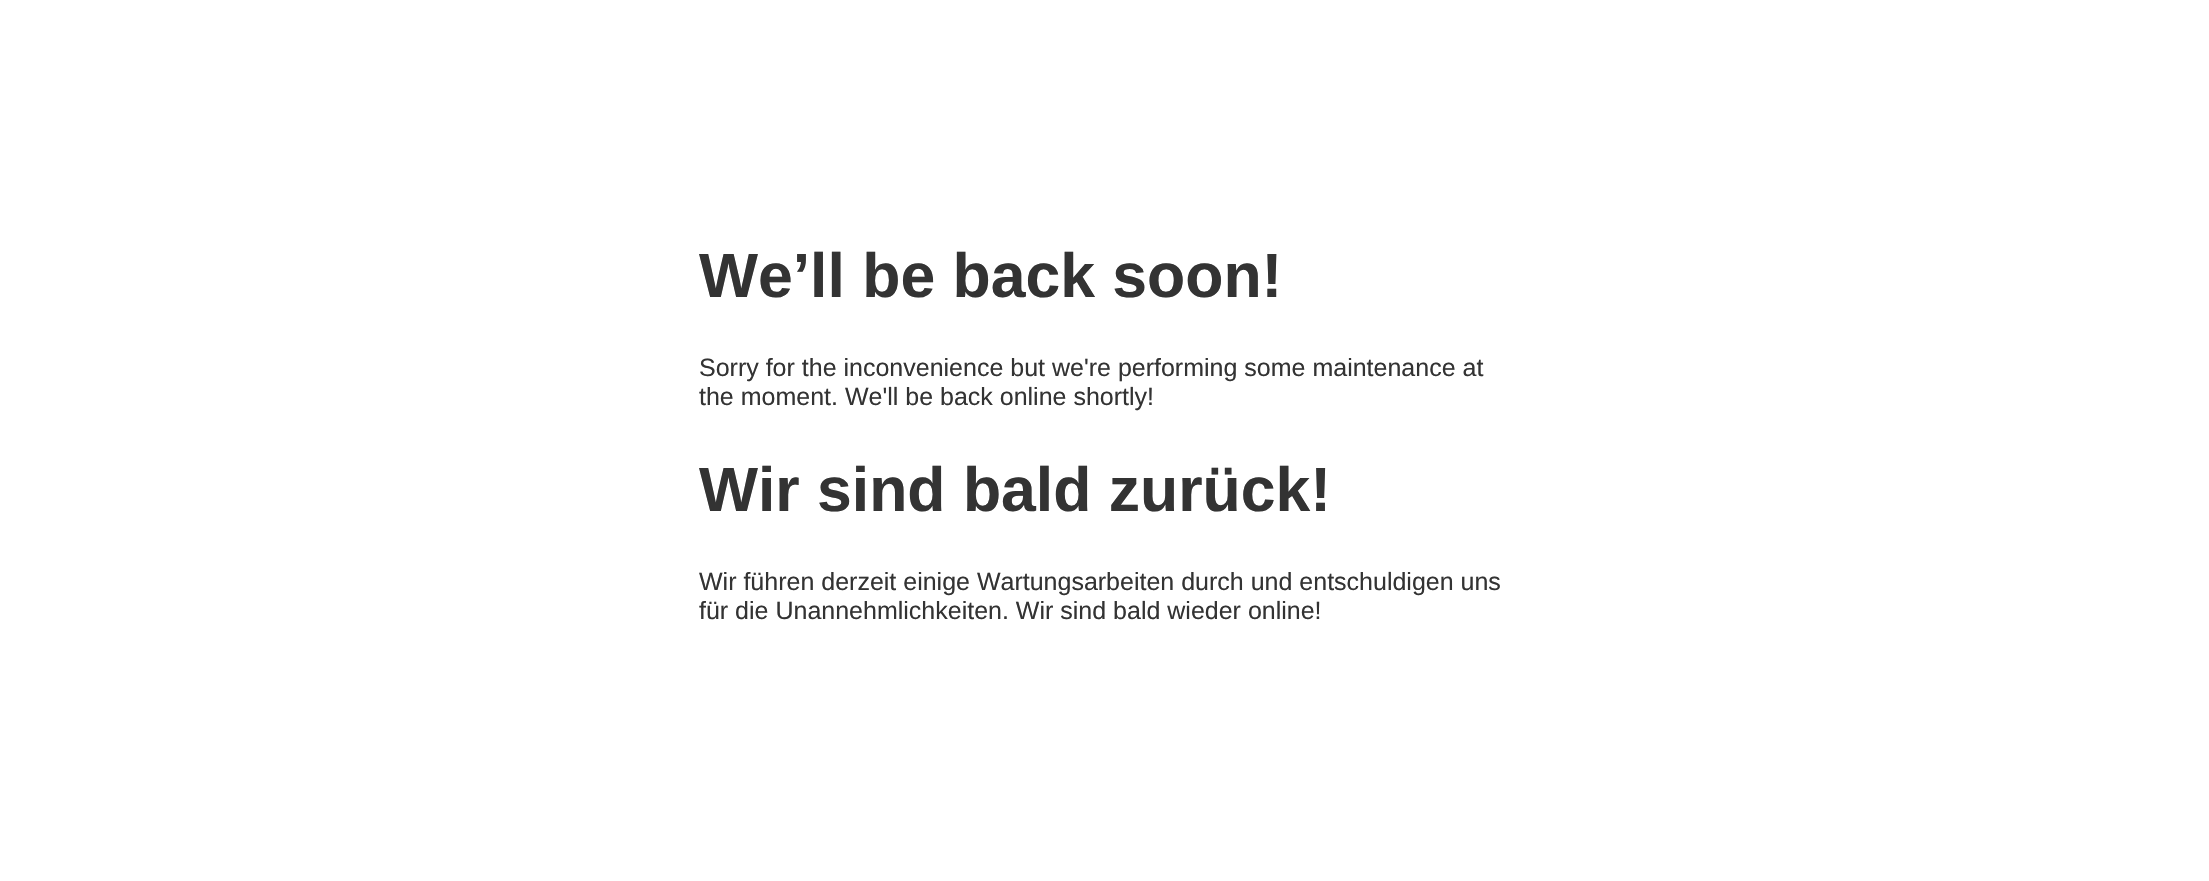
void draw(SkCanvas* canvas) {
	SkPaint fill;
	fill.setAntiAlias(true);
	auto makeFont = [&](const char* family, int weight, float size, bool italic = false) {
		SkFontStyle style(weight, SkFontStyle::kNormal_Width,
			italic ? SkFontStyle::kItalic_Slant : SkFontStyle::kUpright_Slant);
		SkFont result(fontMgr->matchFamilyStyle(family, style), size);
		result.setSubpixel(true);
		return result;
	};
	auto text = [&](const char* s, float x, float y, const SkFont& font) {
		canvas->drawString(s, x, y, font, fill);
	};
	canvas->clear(0xFFFFFFFF);
	auto font1 = makeFont("Liberation Sans", 700, 62.5f);
	fill.setColor(0xFF333333);
	text("We’ll be back soon!", 699, 297, font1);
	auto font2 = makeFont("Liberation Sans", 400, 25);
	text("Sorry for the inconvenience but we're performing some maintenance at", 699, 376, font2);
	text("the moment. We'll be back online shortly!", 699, 405, font2);
	text("Wir sind bald zurück!", 699, 511, font1);
	text("Wir führen derzeit einige Wartungsarbeiten durch und entschuldigen uns", 699, 590, font2);
	text("für die Unannehmlichkeiten. Wir sind bald wieder online!", 699, 619, font2);
}
